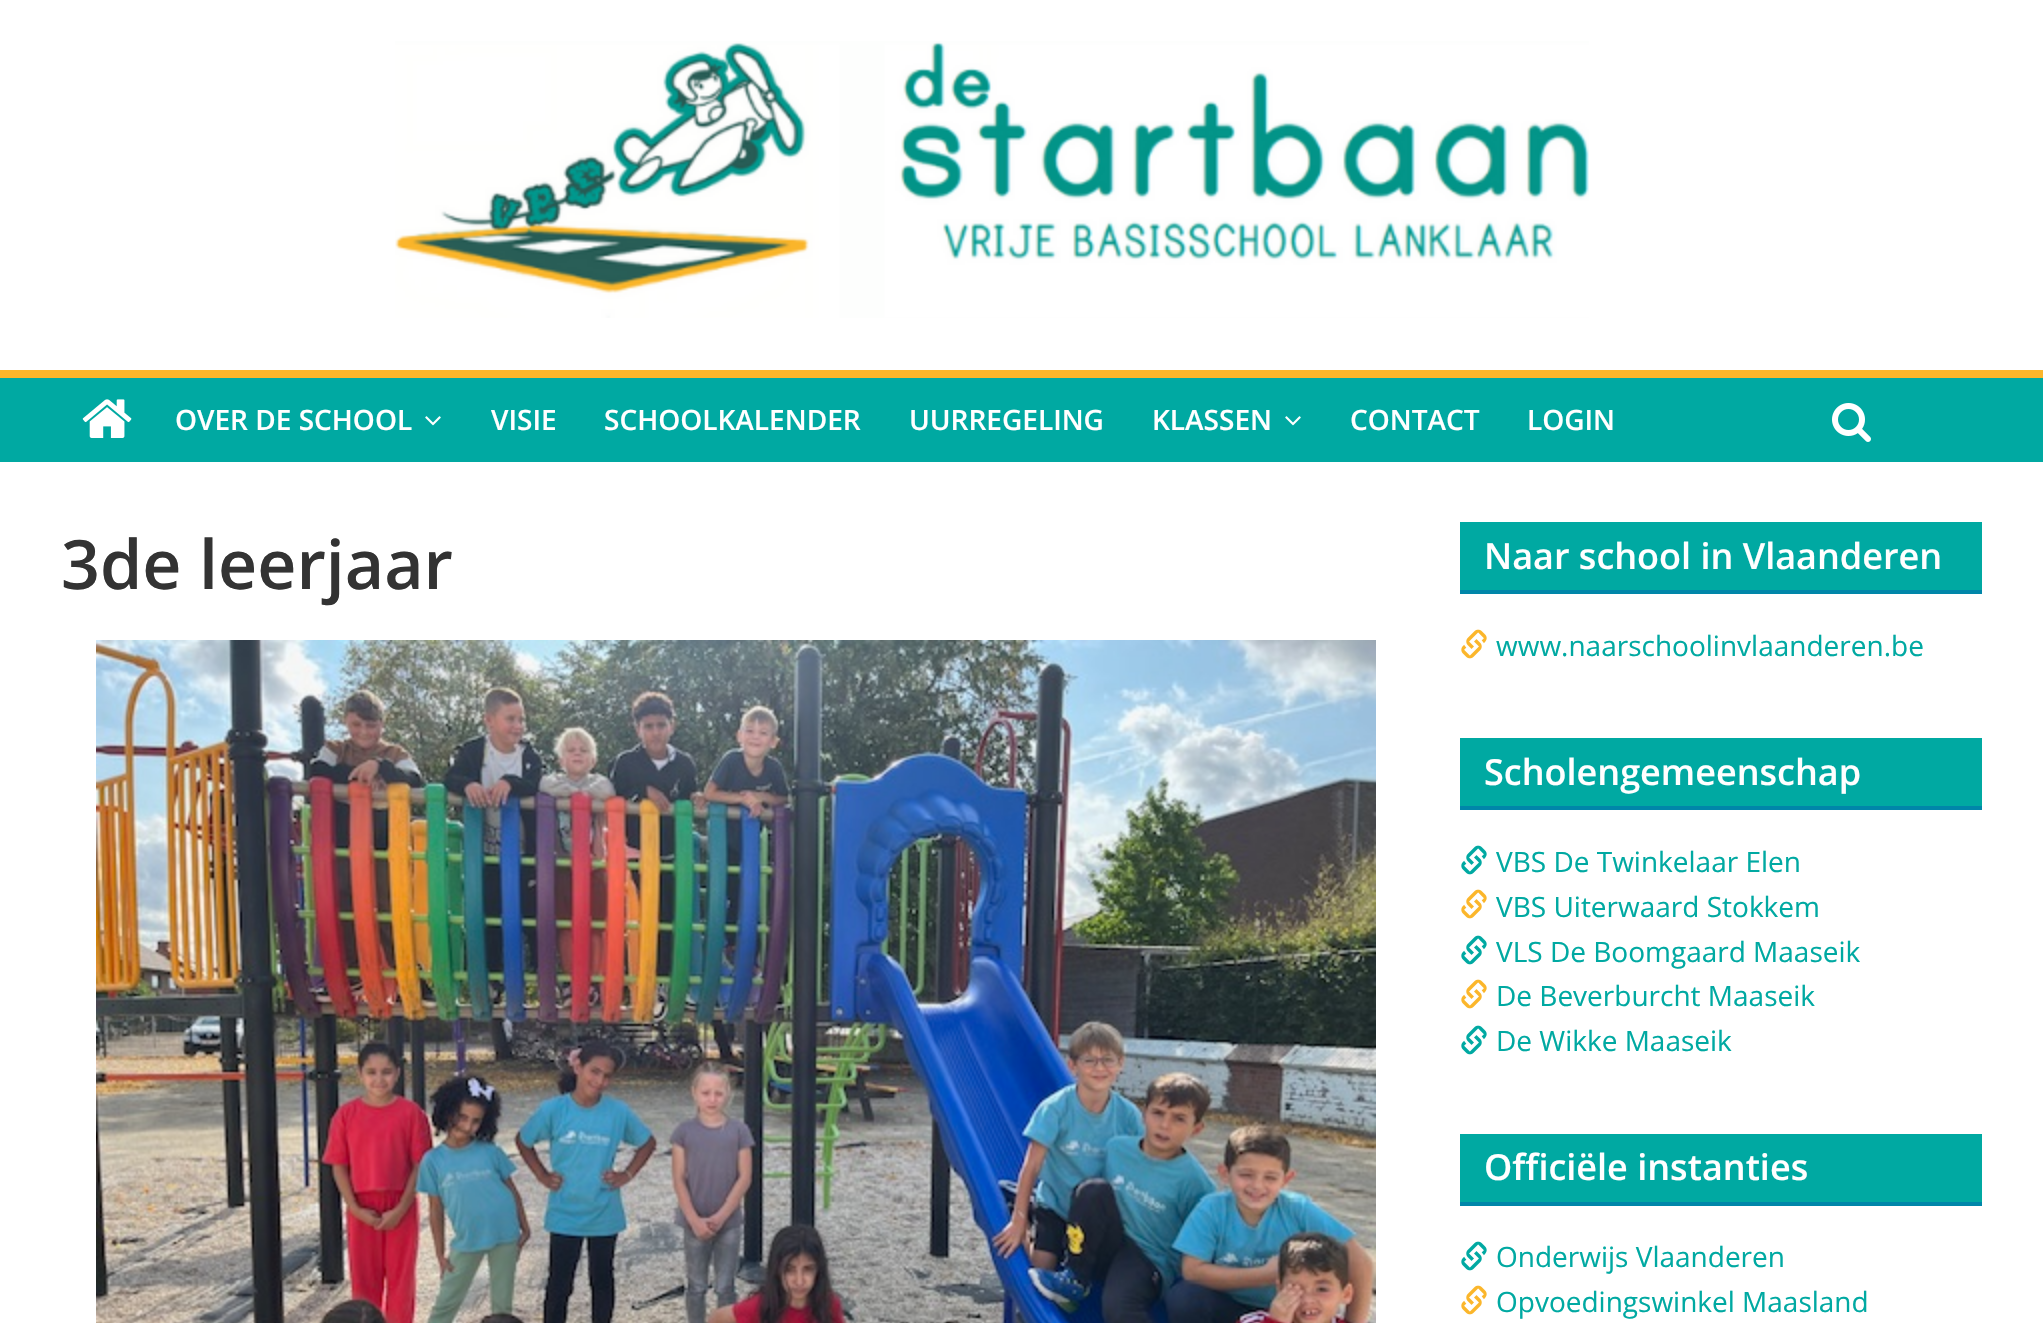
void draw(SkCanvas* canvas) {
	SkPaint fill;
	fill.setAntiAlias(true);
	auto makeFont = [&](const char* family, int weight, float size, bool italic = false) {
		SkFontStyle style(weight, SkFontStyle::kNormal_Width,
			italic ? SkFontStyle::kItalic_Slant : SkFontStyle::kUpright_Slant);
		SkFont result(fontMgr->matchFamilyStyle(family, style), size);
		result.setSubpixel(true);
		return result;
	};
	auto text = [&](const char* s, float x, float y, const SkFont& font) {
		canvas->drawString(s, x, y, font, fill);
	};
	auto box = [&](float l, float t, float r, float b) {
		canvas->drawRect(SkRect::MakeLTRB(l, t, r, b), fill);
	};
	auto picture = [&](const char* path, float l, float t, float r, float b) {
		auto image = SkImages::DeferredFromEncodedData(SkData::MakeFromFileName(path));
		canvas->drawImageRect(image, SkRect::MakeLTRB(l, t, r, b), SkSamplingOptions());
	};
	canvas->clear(0xFFFFFFFF);
	picture("image0.png", 395, 41, 1589, 318);
	fill.setColor(0xFF00A9A2);
	box(0, 378, 2043, 462);
	fill.setColor(0xFFFBB62B);
	box(0, 370, 2043, 378);
	picture("image1.png", 82, 399, 132, 438);
	picture("image2.png", 425, 416, 441, 426);
	picture("image2.png", 1285, 416, 1301, 426);
	picture("image3.png", 1832, 403, 1871, 442);
	picture("image4.png", 96, 640, 1376, 1323);
	fill.setColor(0xFF00A9A2);
	box(1460, 522, 1982, 590);
	fill.setColor(0xFF0086A9);
	box(1460, 590, 1982, 594);
	picture("image5.png", 1461, 629, 1487, 659);
	fill.setColor(0xFF00A9A2);
	box(1460, 738, 1982, 806);
	fill.setColor(0xFF0086A9);
	box(1460, 806, 1982, 810);
	picture("image6.png", 1461, 845, 1487, 875);
	picture("image5.png", 1461, 889, 1487, 919);
	picture("image6.png", 1461, 935, 1487, 965);
	picture("image5.png", 1461, 979, 1487, 1009);
	picture("image6.png", 1461, 1025, 1487, 1055);
	fill.setColor(0xFF00A9A2);
	box(1460, 1134, 1982, 1202);
	fill.setColor(0xFF0086A9);
	box(1460, 1202, 1982, 1206);
	picture("image6.png", 1461, 1241, 1487, 1271);
	picture("image5.png", 1461, 1285, 1487, 1315);
	auto font1 = makeFont("Open Sans", 600, 28);
	fill.setColor(0xFFFFFFFF);
	text("OVER DE SCHOOL", 175, 430, font1);
	text("VISIE", 491, 430, font1);
	text("SCHOOLKALENDER", 604, 430, font1);
	text("UURREGELING", 909, 430, font1);
	text("KLASSEN", 1152, 430, font1);
	text("CONTACT", 1350, 430, font1);
	text("LOGIN", 1527, 430, font1);
	auto font2 = makeFont("Open Sans", 600, 68);
	fill.setColor(0xFF333333);
	text("3de leerjaar", 61, 589, font2);
	auto font3 = makeFont("Open Sans", 600, 36);
	fill.setColor(0xFFFFFFFF);
	text("Naar school in Vlaanderen", 1484, 569, font3);
	auto font4 = makeFont("Open Sans", 400, 28);
	fill.setColor(0xFF00A9A2);
	text("www.naarschoolinvlaanderen.be", 1496, 656, font4);
	fill.setColor(0xFFFFFFFF);
	text("Scholengemeenschap", 1484, 785, font3);
	fill.setColor(0xFF00A9A2);
	text("VBS De Twinkelaar Elen", 1496, 872, font4);
	text("VBS Uiterwaard Stokkem", 1496, 917, font4);
	text("VLS De Boomgaard Maaseik", 1496, 962, font4);
	text("De Beverburcht Maaseik", 1496, 1006, font4);
	text("De Wikke Maaseik", 1496, 1051, font4);
	fill.setColor(0xFFFFFFFF);
	text("Officiële instanties", 1484, 1180, font3);
	fill.setColor(0xFF00A9A2);
	text("Onderwijs Vlaanderen", 1496, 1267, font4);
	text("Opvoedingswinkel Maasland", 1496, 1312, font4);
}
